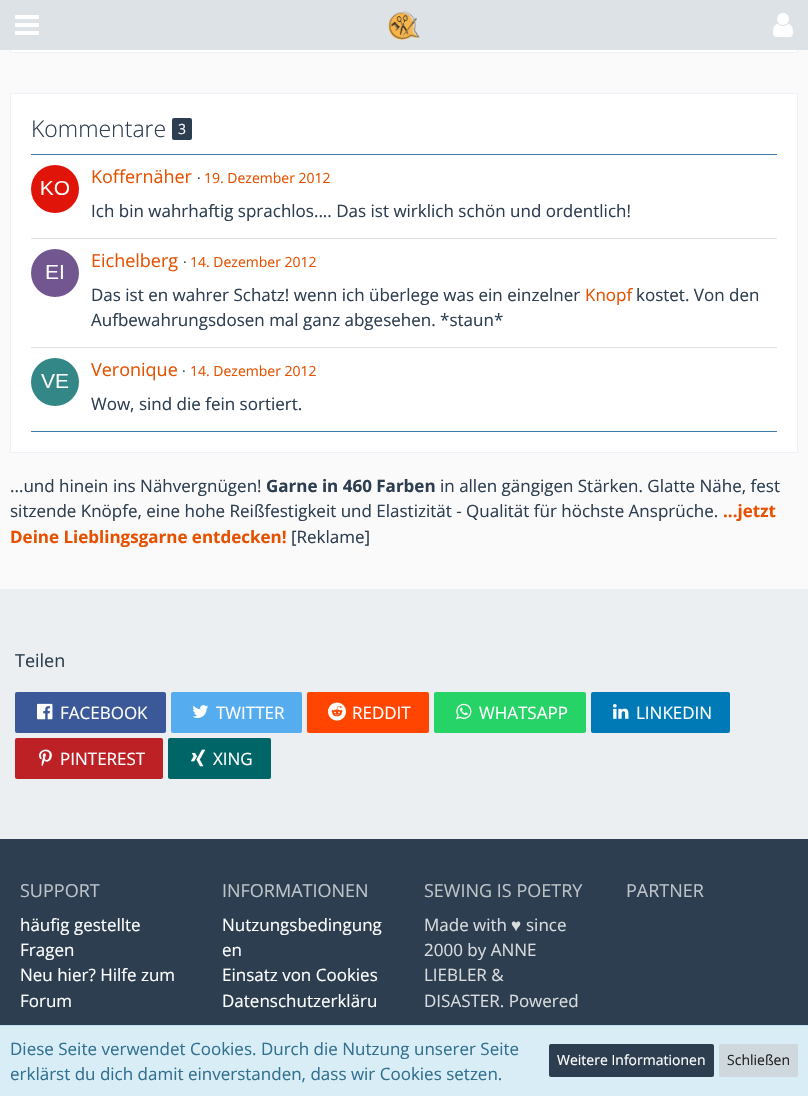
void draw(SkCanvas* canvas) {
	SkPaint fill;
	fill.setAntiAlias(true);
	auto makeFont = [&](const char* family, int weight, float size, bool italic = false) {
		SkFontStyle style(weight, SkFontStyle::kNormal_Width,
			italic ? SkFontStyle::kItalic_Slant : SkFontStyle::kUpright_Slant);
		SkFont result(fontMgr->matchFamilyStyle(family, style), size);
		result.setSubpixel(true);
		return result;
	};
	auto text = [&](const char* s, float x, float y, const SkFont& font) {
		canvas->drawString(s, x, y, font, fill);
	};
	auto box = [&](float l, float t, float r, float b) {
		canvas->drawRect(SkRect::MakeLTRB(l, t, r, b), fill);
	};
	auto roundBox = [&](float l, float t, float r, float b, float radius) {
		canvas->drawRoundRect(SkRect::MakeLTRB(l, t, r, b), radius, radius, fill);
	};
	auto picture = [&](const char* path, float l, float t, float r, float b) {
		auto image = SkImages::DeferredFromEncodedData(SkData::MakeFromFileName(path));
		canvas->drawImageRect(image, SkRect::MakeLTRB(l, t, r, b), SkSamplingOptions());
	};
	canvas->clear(0xFFFAFAFA);
	fill.setColor(0xFFFFFFFF);
	box(11, 50, 797, 52);
	fill.setStyle(SkPaint::kStroke_Style);
	fill.setStrokeWidth(1);
	fill.setColor(0xFFECF1F7);
	canvas->drawRect(SkRect::MakeLTRB(10.5f, -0.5f, 797.5f, 52.5f), fill);
	fill.setStyle(SkPaint::kFill_Style);
	fill.setColor(0xFFDDE2E7);
	box(0, 0, 808, 50);
	picture("image0.png", 15, 15, 39, 35);
	picture("image1.png", 773, 13, 793, 37);
	picture("image2.png", 388, 10, 420, 40);
	fill.setColor(0xFFFFFFFF);
	canvas->drawRect(SkRect::MakeLTRB(10.5f, 93.5f, 797.5f, 452.5f), fill);
	fill.setStyle(SkPaint::kStroke_Style);
	fill.setColor(0xFFECF1F7);
	canvas->drawRect(SkRect::MakeLTRB(10.5f, 93.5f, 797.5f, 452.5f), fill);
	fill.setStyle(SkPaint::kFill_Style);
	fill.setColor(0xFF2C3E50);
	roundBox(172, 118, 192, 140, 2);
	fill.setColor(0xFF4179AD);
	box(31, 154, 777, 155);
	fill.setColor(0xFFE0E0E0);
	box(31, 238, 777, 239);
	picture("image3.png", 31, 165, 79, 213);
	box(31, 347, 777, 348);
	picture("image4.png", 31, 249, 79, 297);
	fill.setColor(0xFF4179AD);
	box(31, 431, 777, 432);
	picture("image5.png", 31, 358, 79, 406);
	fill.setColor(0xFFECEFF1);
	box(0, 589, 808, 839);
	fill.setColor(0xFF3B5999);
	roundBox(15, 692, 166, 733, 2);
	picture("image6.png", 37, 703, 53, 720);
	fill.setColor(0xFF55ACEE);
	roundBox(171, 692, 302, 733, 2);
	picture("image7.png", 192, 705, 209, 718);
	fill.setColor(0xFFFF4500);
	roundBox(307, 692, 429, 733, 2);
	picture("image8.png", 328, 702, 346, 721);
	fill.setColor(0xFF25D366);
	roundBox(434, 692, 586, 733, 2);
	picture("image9.png", 456, 703, 472, 720);
	fill.setColor(0xFF007AB6);
	roundBox(591, 692, 730, 733, 2);
	picture("image10.png", 613, 704, 629, 719);
	fill.setColor(0xFFBD2125);
	roundBox(15, 738, 163, 779, 2);
	picture("image11.png", 39, 749, 52, 767);
	fill.setColor(0xFF006567);
	roundBox(168, 738, 271, 779, 2);
	picture("image12.png", 191, 749, 206, 767);
	fill.setColor(0xFF2C3E50);
	box(0, 839, 808, 1025);
	fill.setColor(0xFFD9EDF7);
	box(0, 1026, 808, 1096);
	fill.setColor(0xFFBCDFF1);
	box(0, 1025, 808, 1026);
	fill.setColor(0xFF2C3E50);
	roundBox(549, 1044, 714, 1077, 2);
	fill.setColor(0xFFCFD8DC);
	roundBox(719, 1044, 798, 1077, 2);
	auto font1 = makeFont("Open Sans", 300, 23);
	fill.setColor(0xFF2C3E50);
	text("Kommentare", 31, 137, font1);
	auto font2 = makeFont("Open Sans", 400, 14);
	fill.setColor(0xFFFFFFFF);
	text("3", 178, 134, font2);
	auto font3 = makeFont("Open Sans", 400, 18);
	fill.setColor(0xFFE65100);
	text("Koffernäher", 91, 183, font3);
	fill.setColor(0xFF2C3E50);
	text("·", 197, 183, font2);
	fill.setColor(0xFFE65100);
	text("19. Dezember 2012", 204, 183, font2);
	auto font4 = makeFont("Open Sans", 400, 17);
	fill.setColor(0xFF2C3E50);
	text("Ich bin wahrhaftig sprachlos.... Das ist wirklich schön und ordentlich!", 91, 217, font4);
	fill.setColor(0xFFE65100);
	text("Eichelberg", 91, 267, font3);
	fill.setColor(0xFF2C3E50);
	text("·", 183, 267, font2);
	fill.setColor(0xFFE65100);
	text("14. Dezember 2012", 190, 267, font2);
	fill.setColor(0xFF2C3E50);
	text("Das ist en wahrer Schatz! wenn ich überlege was ein einzelner", 91, 301, font4);
	fill.setColor(0xFFE65100);
	text("Knopf", 585, 301, font4);
	fill.setColor(0xFF2C3E50);
	text("kostet. Von den", 636, 301, font4);
	text("Aufbewahrungsdosen mal ganz abgesehen. *staun*", 91, 326, font4);
	fill.setColor(0xFFE65100);
	text("Veronique", 91, 376, font3);
	fill.setColor(0xFF2C3E50);
	text("·", 182, 376, font2);
	fill.setColor(0xFFE65100);
	text("14. Dezember 2012", 190, 376, font2);
	fill.setColor(0xFF2C3E50);
	text("Wow, sind die fein sortiert.", 91, 410, font4);
	text("...und hinein ins Nähvergnügen!", 10, 492, font4);
	auto font5 = makeFont("Open Sans", 700, 17);
	text("Garne in 460 Farben", 266, 492, font5);
	text("in allen gängigen Stärken. Glatte Nähe, fest", 440, 492, font4);
	text("sitzende Knöpfe, eine hohe Reißfestigkeit und Elastizität - Qualität für höchste Ansprüche.", 10, 517, font4);
	fill.setColor(0xFFE65100);
	text("...jetzt", 723, 517, font5);
	text("Deine Lieblingsgarne entdecken!", 10, 543, font5);
	fill.setColor(0xFF2C3E50);
	text("[Reklame]", 291, 543, font4);
	text("Teilen", 15, 667, font3);
	fill.setColor(0xFFFFFFFF);
	text("FACEBOOK", 60, 719, font4);
	text("TWITTER", 216, 719, font4);
	text("REDDIT", 352, 719, font4);
	text("WHATSAPP", 479, 719, font4);
	text("LINKEDIN", 636, 719, font4);
	text("PINTEREST", 60, 765, font4);
	text("XING", 213, 765, font4);
	fill.setColor(0xFFBDC3C7);
	text("SUPPORT", 20, 897, font3);
	fill.setColor(0xFFFFFFFF);
	text("häufig gestellte", 20, 931, font4);
	text("Fragen", 20, 956, font4);
	text("Neu hier? Hilfe zum", 20, 981, font4);
	text("Forum", 20, 1007, font4);
	fill.setColor(0xFFBDC3C7);
	text("INFORMATIONEN", 222, 897, font3);
	fill.setColor(0xFFFFFFFF);
	text("Nutzungsbedingung", 222, 931, font4);
	text("en", 222, 956, font4);
	text("Einsatz von Cookies", 222, 981, font4);
	text("Datenschutzerkläru", 222, 1007, font4);
	fill.setColor(0xFFBDC3C7);
	text("SEWING IS POETRY", 424, 897, font3);
	fill.setColor(0xFFD9DCDE);
	text("Made with", 424, 931, font4);
	auto font6 = makeFont("Liberation Sans", 400, 17);
	text("♥", 511, 931, font6);
	text("since", 526, 931, font4);
	text("2000 by ANNE", 424, 956, font4);
	text("LIEBLER &", 424, 981, font4);
	text("DISASTER. Powered", 424, 1007, font4);
	fill.setColor(0xFFBDC3C7);
	text("PARTNER", 626, 897, font3);
	fill.setColor(0xFF31708F);
	text("Diese Seite verwendet Cookies. Durch die Nutzung unserer Seite", 10, 1055, font4);
	text("erklärst du dich damit einverstanden, dass wir Cookies setzen.", 10, 1080, font4);
	fill.setColor(0xFFFFFFFF);
	text("Weitere Informationen", 557, 1065, font2);
	fill.setColor(0xFF212121);
	text("Schließen", 727, 1065, font2);
}
